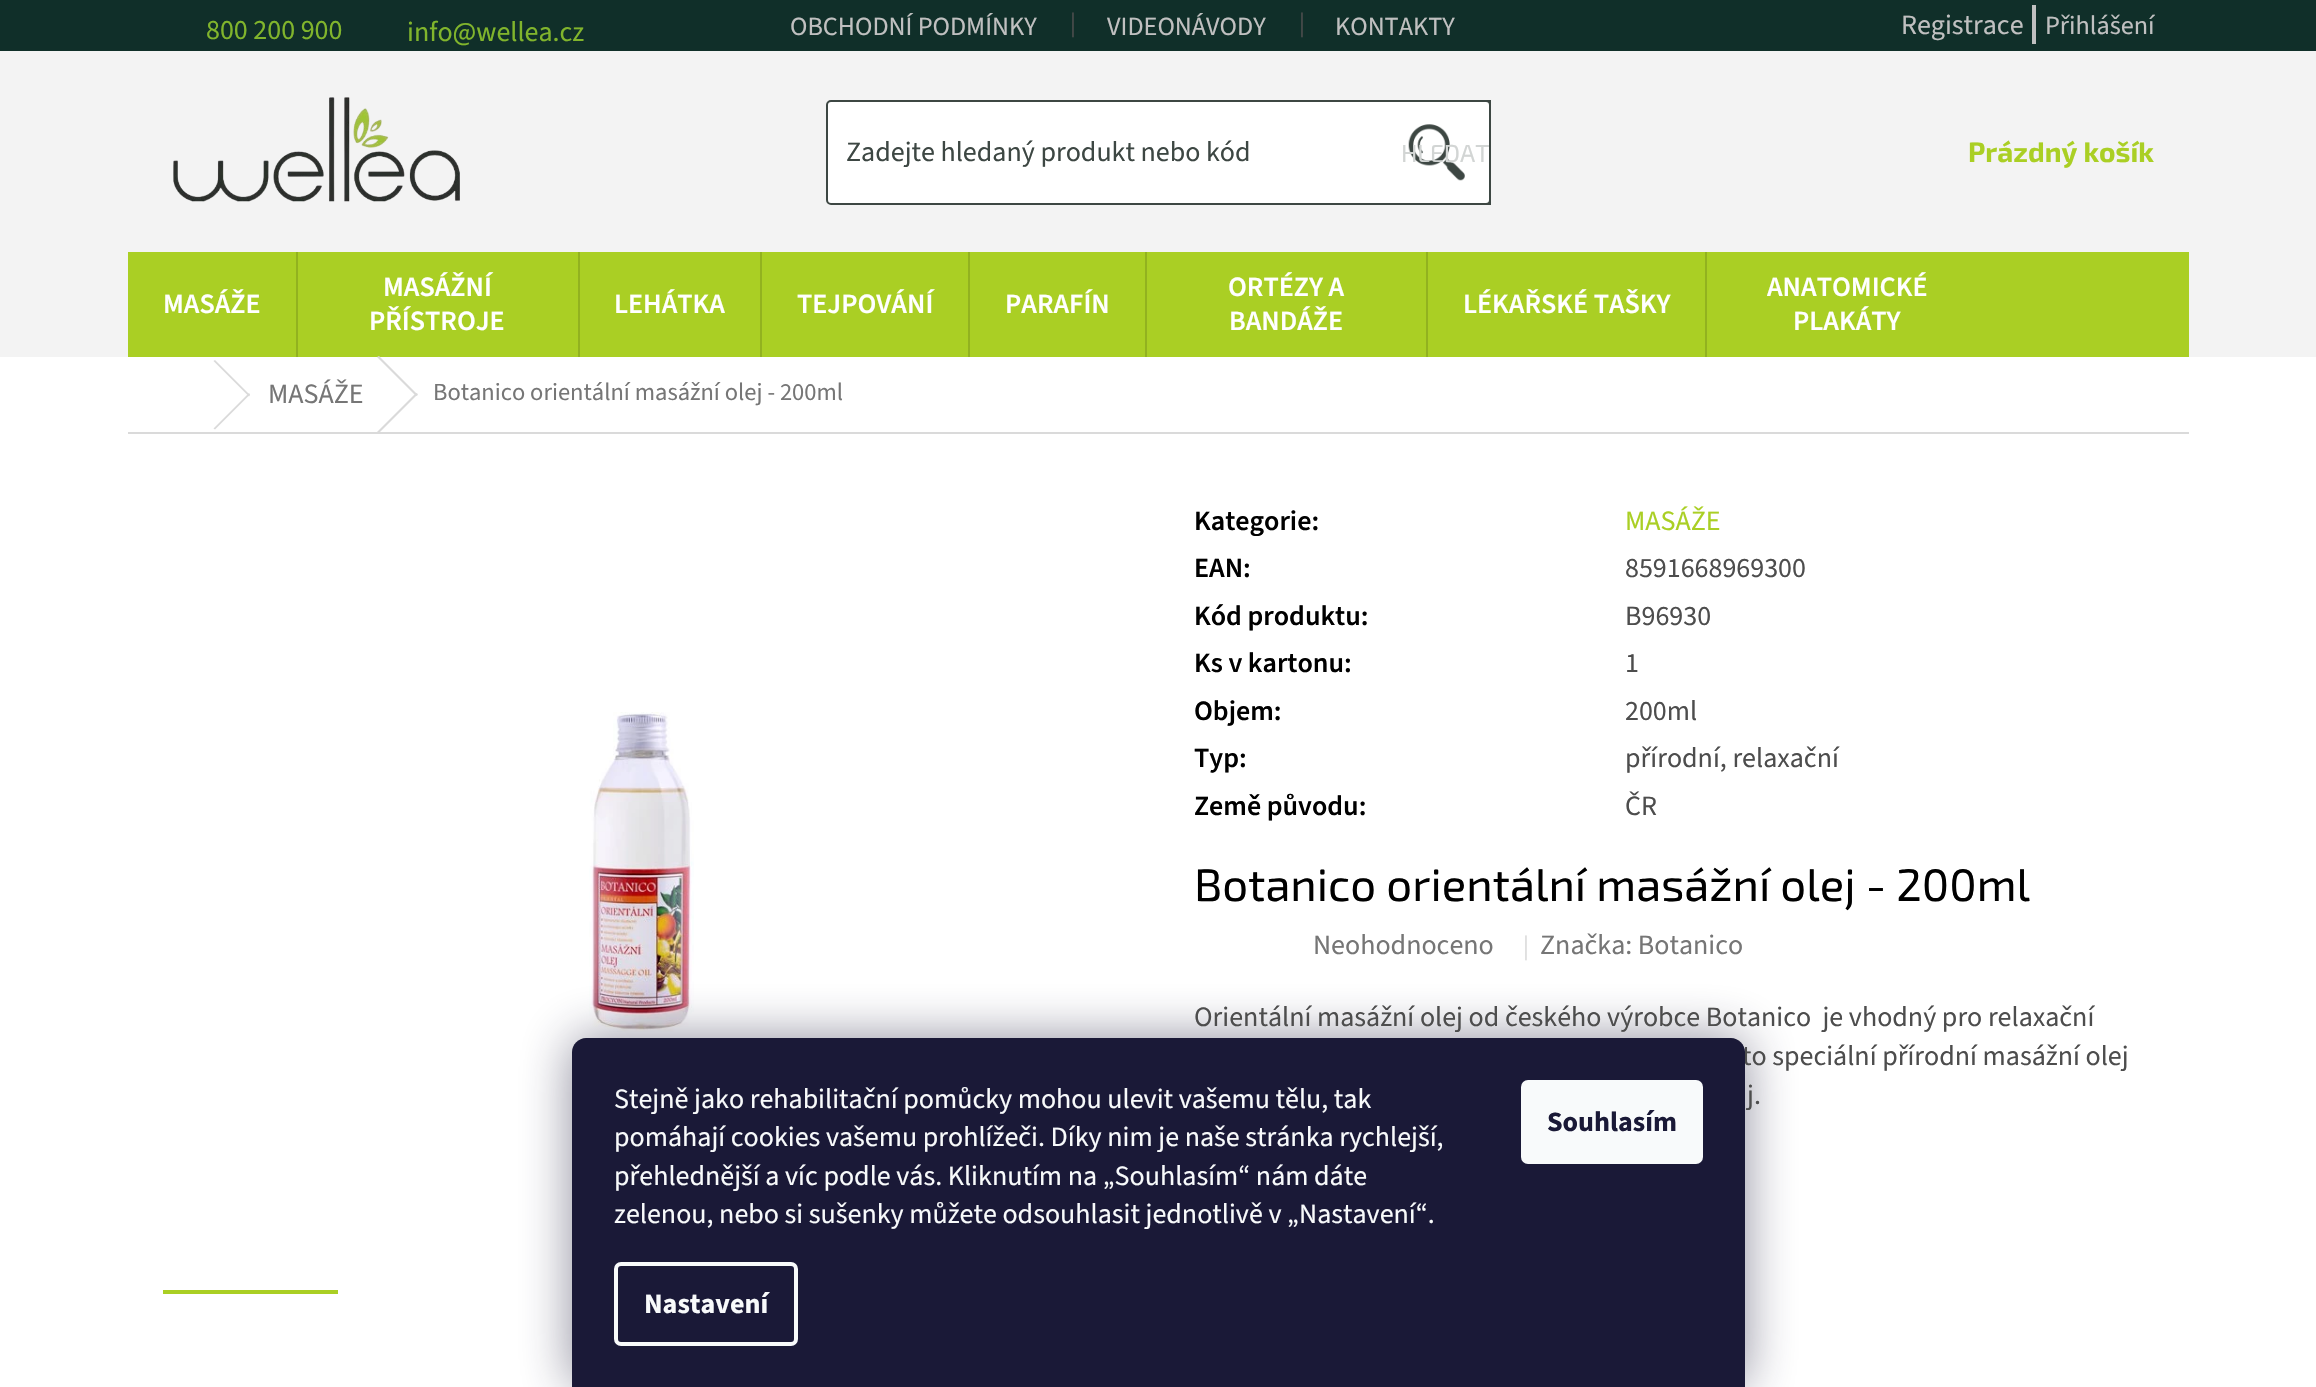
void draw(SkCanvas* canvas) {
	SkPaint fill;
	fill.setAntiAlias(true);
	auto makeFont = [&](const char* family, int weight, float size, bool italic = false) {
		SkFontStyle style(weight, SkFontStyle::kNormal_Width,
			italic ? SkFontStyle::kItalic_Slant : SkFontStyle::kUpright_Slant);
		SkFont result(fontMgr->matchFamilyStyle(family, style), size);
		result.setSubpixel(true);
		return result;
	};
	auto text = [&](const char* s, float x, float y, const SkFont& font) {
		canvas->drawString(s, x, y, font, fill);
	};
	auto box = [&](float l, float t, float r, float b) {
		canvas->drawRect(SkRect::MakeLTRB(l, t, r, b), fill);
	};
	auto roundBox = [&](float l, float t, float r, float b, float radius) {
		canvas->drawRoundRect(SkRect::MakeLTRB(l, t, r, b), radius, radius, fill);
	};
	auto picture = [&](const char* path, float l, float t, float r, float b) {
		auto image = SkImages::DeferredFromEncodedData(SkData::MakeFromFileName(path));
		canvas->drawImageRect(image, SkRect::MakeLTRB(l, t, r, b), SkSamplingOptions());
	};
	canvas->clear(0xFFFFFFFF);
	fill.setColor(0xFF102F29);
	box(0, 0, 2316, 51);
	fill.setColor(0xFFC0C0C0);
	box(2032, 5, 2036, 44);
	fill.setColor(0xFFF3F3F3);
	box(0, 51, 2316, 357);
	picture("image0.png", 173, 97, 460, 202);
	fill.setColor(0xFFFFFFFF);
	canvas->drawRoundRect(SkRect::MakeLTRB(827, 101, 1490, 204), 4, 4, fill);
	fill.setStyle(SkPaint::kStroke_Style);
	fill.setStrokeWidth(2);
	fill.setColor(0xFF3D4743);
	canvas->drawRoundRect(SkRect::MakeLTRB(827, 101, 1490, 204), 4, 4, fill);
	picture("image1.png", 1408, 124, 1465, 181);
	fill.setStyle(SkPaint::kFill_Style);
	box(1486, 100, 1491, 102);
	box(1489, 100, 1491, 205);
	box(1486, 204, 1491, 205);
	fill.setColor(0xFFAACF24);
	box(128, 252, 2189, 357);
	fill.setColor(0xFF92B21F);
	box(296, 252, 298, 357);
	box(578, 252, 580, 357);
	box(760, 252, 762, 357);
	box(968, 252, 970, 357);
	box(1145, 252, 1147, 357);
	box(1426, 252, 1428, 357);
	box(1705, 252, 1707, 357);
	fill.setColor(0xFFDADADA);
	box(128, 432, 2189, 434);
	canvas->drawPath(SkPathBuilder().moveTo(213.5f, 361).lineTo(215, 360).lineTo(250, 395).lineTo(249, 396.5f).close().detach(), fill);
	canvas->drawPath(SkPathBuilder().moveTo(249, 393).lineTo(250, 394.5f).lineTo(215, 429.5f).lineTo(213.5f, 428.5f).close().detach(), fill);
	canvas->drawPath(SkPathBuilder().moveTo(377, 357).lineTo(379, 356).lineTo(418, 395).lineTo(416, 396).close().detach(), fill);
	canvas->drawPath(SkPathBuilder().moveTo(416, 393).lineTo(418, 394).lineTo(379, 433).lineTo(377, 432).close().detach(), fill);
	picture("image2.png", 589, 712, 694, 1032);
	fill.setColor(0xFFAACF24);
	box(163, 1290, 338, 1294);
	fill.setColor(0x801B1939);
	fill.setMaskFilter(SkMaskFilter::MakeBlur(kNormal_SkBlurStyle, 26));
	canvas->drawRoundRect(SkRect::MakeLTRB(572, 1038, 1745, 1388), 14, 14, fill);
	fill.setMaskFilter(nullptr);
	auto font1 = makeFont("Source Sans 3", 400, 28);
	fill.setColor(0xFF81B52C);
	text("800 200 900", 206, 39, font1);
	text("info@wellea.cz", 407, 41, font1);
	auto font2 = makeFont("Source Sans 3", 400, 26.25f);
	fill.setColor(0xFFC0C0C0);
	text("OBCHODNÍ PODMÍNKY", 790, 35, font2);
	auto font3 = makeFont("Source Sans 3", 400, 24.5f);
	fill.setColor(0xFF4D4D4D);
	text("|", 1070, 31, font3);
	fill.setColor(0xFFC0C0C0);
	text("VIDEONÁVODY", 1107, 35, font2);
	fill.setColor(0xFF4D4D4D);
	text("|", 1299, 31, font3);
	fill.setColor(0xFFC0C0C0);
	text("KONTAKTY", 1335, 35, font2);
	text("Registrace", 1901, 34, font1);
	text("Přihlášení", 2045, 34, font2);
	fill.setColor(0xFF3D4743);
	text("Zadejte hledaný produkt nebo kód", 846, 161, font1);
	auto font4 = makeFont("Exo 2", 400, 24.5f);
	fill.setColor(0xFFD2D5D4);
	text("HLEDAT", 1401, 162, font4);
	auto font5 = makeFont("Exo 2", 700, 28);
	fill.setColor(0xFFAACF24);
	text("Prázdný košík", 1968, 162, font5);
	auto font6 = makeFont("Source Sans 3", 600, 28);
	fill.setColor(0xFFFFFFFF);
	text("MASÁŽE", 163, 313, font6);
	text("MASÁŽNÍ", 383, 296, font6);
	text("PŘÍSTROJE", 369, 330, font6);
	text("LEHÁTKA", 614, 313, font6);
	text("TEJPOVÁNÍ", 797, 313, font6);
	text("PARAFÍN", 1005, 313, font6);
	text("ORTÉZY A", 1228, 296, font6);
	text("BANDÁŽE", 1229, 330, font6);
	text("LÉKAŘSKÉ TAŠKY", 1463, 313, font6);
	text("ANATOMICKÉ", 1767, 296, font6);
	text("PLAKÁTY", 1793, 330, font6);
	fill.setColor(0xFF767676);
	text("MASÁŽE", 268, 403, font1);
	text("Botanico orientální masážní olej - 200ml", 433, 400, font3);
	fill.setColor(0xFF000000);
	text("Kategorie:", 1194, 530, font6);
	fill.setColor(0xFFAACF24);
	text("MASÁŽE", 1625, 530, font1);
	fill.setColor(0xFF000000);
	text("EAN:", 1194, 577, font6);
	fill.setColor(0xFF4D4D4D);
	text("8591668969300", 1625, 577, font1);
	fill.setColor(0xFF000000);
	text("Kód produktu:", 1194, 625, font6);
	fill.setColor(0xFF4D4D4D);
	text("B96930", 1625, 625, font1);
	fill.setColor(0xFF000000);
	text("Ks v kartonu:", 1194, 672, font6);
	fill.setColor(0xFF4D4D4D);
	text("1", 1625, 672, font1);
	fill.setColor(0xFF000000);
	text("Objem:", 1194, 720, font6);
	fill.setColor(0xFF4D4D4D);
	text("200ml", 1625, 720, font1);
	fill.setColor(0xFF000000);
	text("Typ:", 1194, 767, font6);
	fill.setColor(0xFF4D4D4D);
	text("přírodní, relaxační", 1625, 767, font1);
	fill.setColor(0xFF000000);
	text("Země původu:", 1194, 815, font6);
	fill.setColor(0xFF4D4D4D);
	text("ČR", 1625, 815, font1);
	auto font7 = makeFont("Exo 2", 400, 45.5f);
	fill.setColor(0xFF000000);
	text("Botanico orientální masážní olej - 200ml", 1194, 901, font7);
	fill.setColor(0xFF767676);
	text("Neohodnoceno", 1313, 954, font1);
	fill.setColor(0xFFDADADA);
	text("|", 1523, 954, font3);
	fill.setColor(0xFF767676);
	text("Značka: Botanico", 1540, 954, font1);
	fill.setColor(0xFF4D4D4D);
	text("Orientální masážní olej od českého výrobce Botanico  je vhodný pro relaxační", 1194, 1026, font1);
	text("to speciální přírodní masážní olej", 1742, 1065, font1);
	text("j.", 1747, 1104, font1);
	fill.setColor(0xFF1A1937);
	canvas->drawPath(SkPathBuilder().moveTo(586, 1038).lineTo(1731, 1038).cubicTo(1738.5f, 1038, 1745, 1044.5f, 1745, 1052).lineTo(1745, 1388).lineTo(572, 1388).lineTo(572, 1052).cubicTo(572, 1044.5f, 578.5f, 1038, 586, 1038).close().detach(), fill);
	fill.setColor(0xFFF8FAFB);
	text("Stejně jako rehabilitační pomůcky mohou ulevit vašemu tělu, tak", 614, 1108, font1);
	text("pomáhají cookies vašemu prohlížeči. Díky nim je naše stránka rychlejší,", 614, 1146, font1);
	text("přehlednější a víc podle vás. Kliknutím na „Souhlasím“ nám dáte", 614, 1185, font1);
	text("zelenou, nebo si sušenky můžete odsouhlasit jednotlivě v „Nastavení“.", 614, 1223, font1);
	fill.setStyle(SkPaint::kStroke_Style);
	fill.setStrokeWidth(4);
	canvas->drawRoundRect(SkRect::MakeLTRB(616, 1264, 796, 1344), 5, 5, fill);
	auto font8 = makeFont("Source Sans 3", 700, 28);
	fill.setStyle(SkPaint::kFill_Style);
	text("Nastavení", 644, 1313, font8);
	roundBox(1521, 1080, 1703, 1164, 7);
	fill.setColor(0xFF1A1937);
	text("Souhlasím", 1547, 1131, font8);
}
